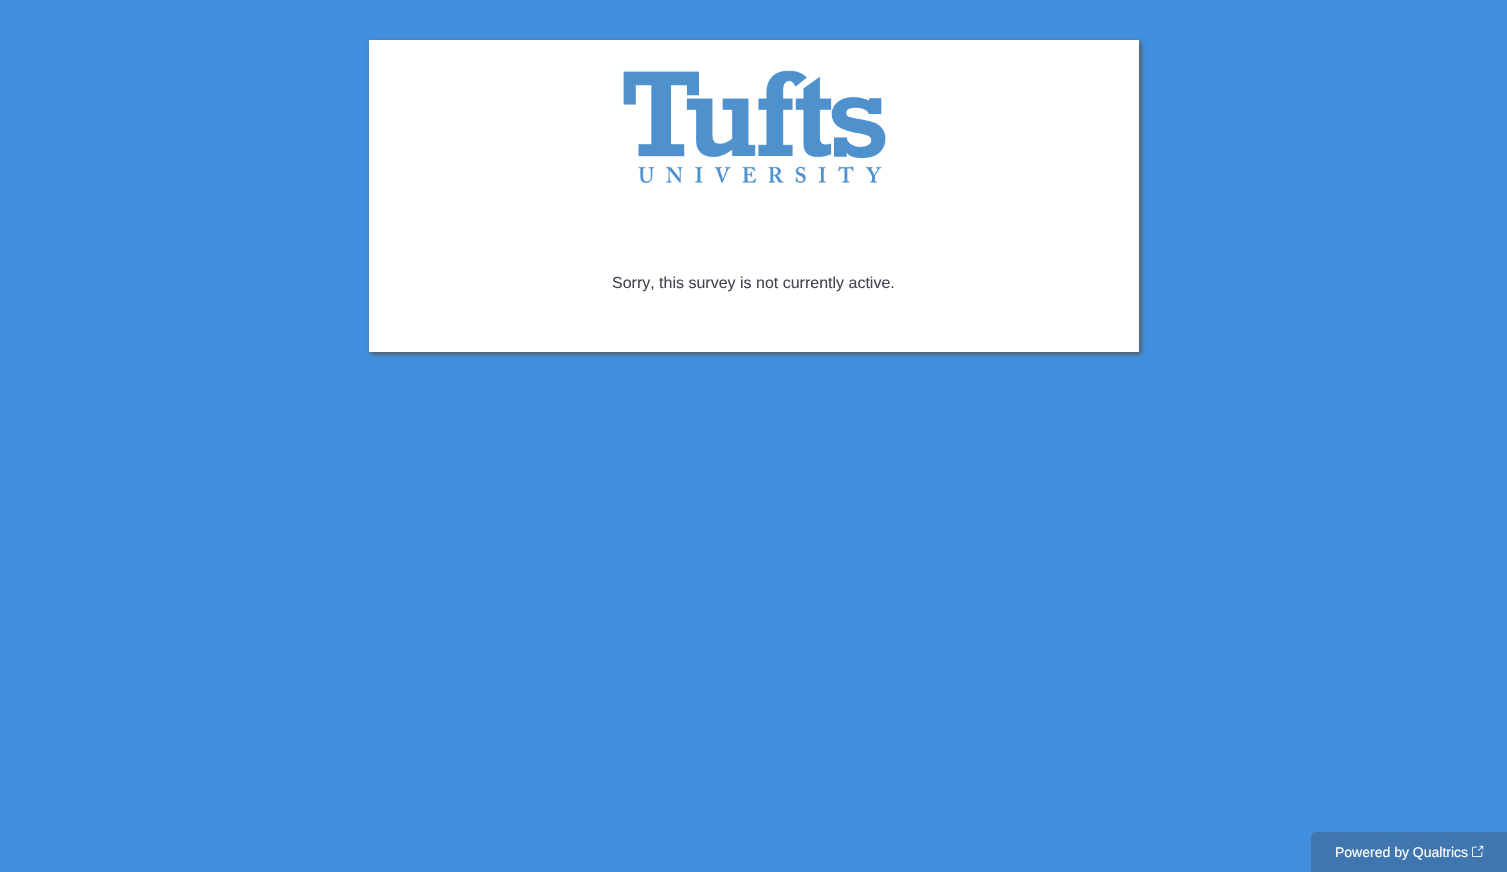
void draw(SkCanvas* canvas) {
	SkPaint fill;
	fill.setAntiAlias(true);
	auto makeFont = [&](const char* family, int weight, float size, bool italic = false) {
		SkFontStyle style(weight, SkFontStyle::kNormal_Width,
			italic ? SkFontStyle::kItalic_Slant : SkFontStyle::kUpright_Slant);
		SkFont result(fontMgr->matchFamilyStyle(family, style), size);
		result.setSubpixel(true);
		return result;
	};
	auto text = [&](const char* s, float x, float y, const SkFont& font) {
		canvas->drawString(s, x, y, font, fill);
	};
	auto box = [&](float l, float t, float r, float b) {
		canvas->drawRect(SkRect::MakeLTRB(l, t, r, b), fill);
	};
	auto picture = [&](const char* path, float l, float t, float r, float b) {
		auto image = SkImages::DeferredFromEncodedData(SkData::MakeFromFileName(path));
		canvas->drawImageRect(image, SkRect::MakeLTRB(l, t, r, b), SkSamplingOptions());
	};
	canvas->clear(0xFF418FDE);
	fill.setColor(0xFF555555);
	fill.setMaskFilter(SkMaskFilter::MakeBlur(kNormal_SkBlurStyle, 2.5f));
	canvas->drawRect(SkRect::MakeLTRB(371, 42, 1141, 354), fill);
	fill.setMaskFilter(nullptr);
	fill.setColor(0xFFFFFFFF);
	box(369, 40, 1139, 352);
	picture("image0.png", 623, 70, 886, 184);
	fill.setColor(0xFF4076B0);
	canvas->drawPath(SkPathBuilder().moveTo(1316, 832).lineTo(1507, 832).lineTo(1507, 872).lineTo(1311, 872).lineTo(1311, 837).cubicTo(1311, 834, 1313, 832, 1316, 832).close().detach(), fill);
	picture("image1.png", 1472, 845, 1484, 857);
	auto font1 = makeFont("Liberation Sans", 400, 16);
	fill.setColor(0xFF43464D);
	text("Sorry, this survey is not currently active.", 612, 288, font1);
	auto font2 = makeFont("Liberation Sans", 400, 14);
	fill.setColor(0xFFFFFFFF);
	text("Powered by Qualtrics", 1335, 857, font2);
}
